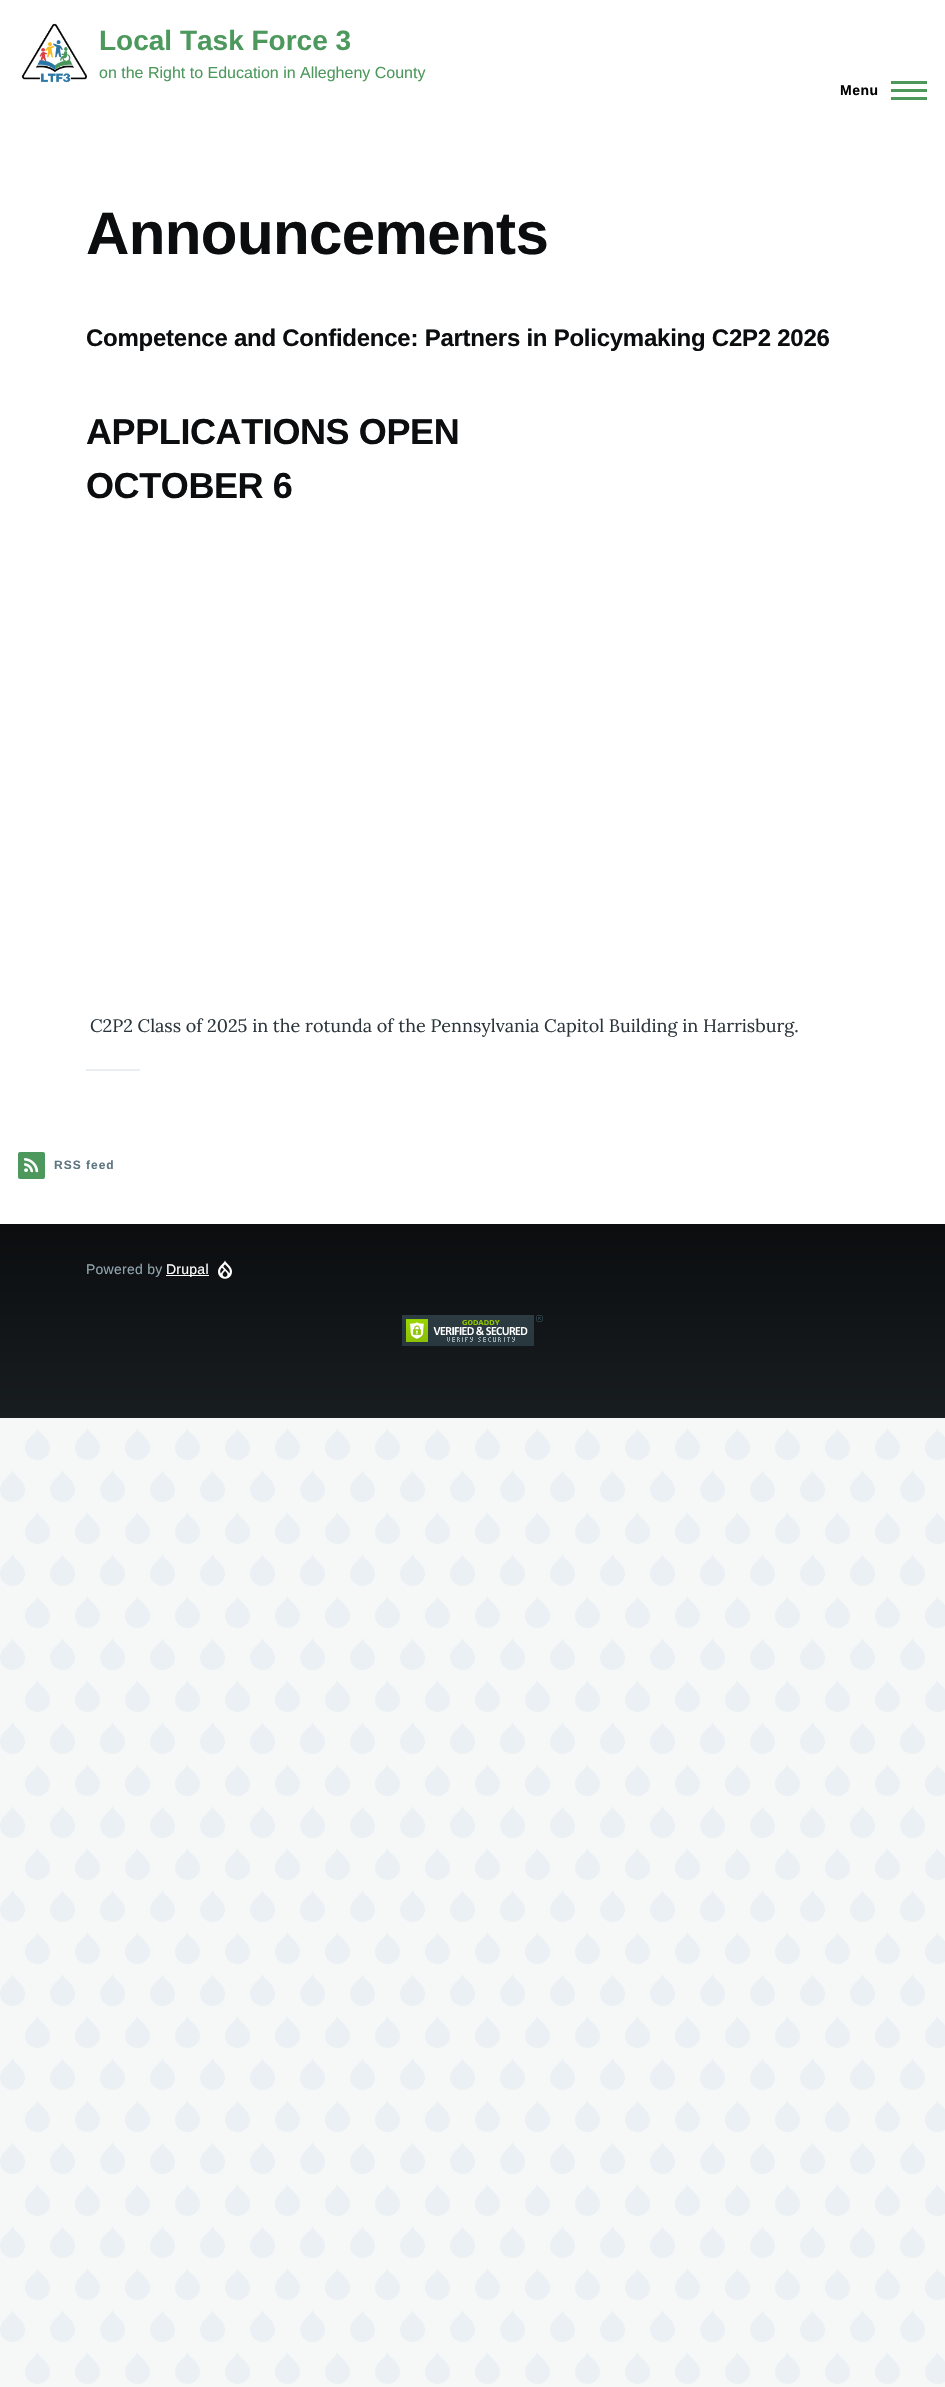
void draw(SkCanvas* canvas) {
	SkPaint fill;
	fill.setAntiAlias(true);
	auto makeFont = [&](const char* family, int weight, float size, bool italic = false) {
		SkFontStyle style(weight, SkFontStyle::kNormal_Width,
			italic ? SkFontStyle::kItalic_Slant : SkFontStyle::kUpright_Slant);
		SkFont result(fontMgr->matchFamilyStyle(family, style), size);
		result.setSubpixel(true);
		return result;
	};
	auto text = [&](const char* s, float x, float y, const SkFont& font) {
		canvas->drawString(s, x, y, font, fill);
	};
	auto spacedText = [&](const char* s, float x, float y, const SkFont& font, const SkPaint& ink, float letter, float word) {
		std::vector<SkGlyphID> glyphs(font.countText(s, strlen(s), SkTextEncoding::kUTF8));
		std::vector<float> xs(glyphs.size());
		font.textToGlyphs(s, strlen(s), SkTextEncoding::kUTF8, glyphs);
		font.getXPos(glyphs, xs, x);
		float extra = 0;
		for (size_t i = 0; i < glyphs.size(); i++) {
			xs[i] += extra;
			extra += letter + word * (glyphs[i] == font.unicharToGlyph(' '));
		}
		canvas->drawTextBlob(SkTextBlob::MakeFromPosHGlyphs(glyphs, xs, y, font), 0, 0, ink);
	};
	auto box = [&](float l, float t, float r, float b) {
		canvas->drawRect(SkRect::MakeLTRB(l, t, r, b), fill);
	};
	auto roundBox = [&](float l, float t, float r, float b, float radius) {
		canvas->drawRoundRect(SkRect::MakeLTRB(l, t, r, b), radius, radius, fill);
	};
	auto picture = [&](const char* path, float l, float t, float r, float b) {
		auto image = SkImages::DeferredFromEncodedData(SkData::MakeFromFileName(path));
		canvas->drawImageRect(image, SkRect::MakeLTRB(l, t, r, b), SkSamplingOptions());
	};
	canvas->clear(0xFFF6F8F8);
	picture("image0.png", 0, 1428, 945, 2384);
	fill.setColor(0xFFFFFFFF);
	box(0, 0, 945, 1224);
	picture("image1.png", 21, 23, 87, 83);
	fill.setColor(0xFF4D995D);
	box(891, 89, 927, 92);
	box(891, 81, 927, 84);
	box(891, 97, 927, 100);
	fill.setColor(0xFFEAEEF0);
	box(86, 1069, 140, 1071);
	fill.setColor(0xFF4D995D);
	roundBox(18, 1152, 45, 1179, 2);
	picture("image2.png", 24, 1158, 39, 1173);
	{
		const SkColor colors[] = {0xFF0B0D0F, 0xFF181D20};
		const float stops[] = {0, 1};
		const SkPoint ends[] = {{473, 1224}, {473, 1418}};
		fill.setShader(SkGradientShader::MakeLinear(ends, colors, stops, 2, SkTileMode::kClamp));
		fill.setAlpha(255);
	}
	box(0, 1224, 945, 1418);
	fill.setShader(nullptr);
	fill.setColor(0xFFFFFFFF);
	box(166, 1275, 209, 1276);
	picture("image3.png", 218, 1260, 232, 1279);
	picture("image4.png", 402, 1315, 543, 1346);
	auto font1 = makeFont("Liberation Sans", 700, 28);
	fill.setColor(0xFF4D995D);
	text("Local Task Force 3", 99, 50, font1);
	auto font2 = makeFont("Liberation Sans", 400, 16);
	text("on the Right to Education in Allegheny County", 99, 78, font2);
	auto font3 = makeFont("Liberation Sans", 700, 14);
	fill.setColor(0xFF000000);
	spacedText("Menu", 840, 95, font3, fill, 0.5f, 0);
	auto font4 = makeFont("Liberation Sans", 700, 60);
	fill.setColor(0xFF0B0D0F);
	spacedText("Announcements", 86, 254, font4, fill, -0.6f, 0);
	auto font5 = makeFont("Liberation Sans", 700, 24);
	spacedText("Competence and Confidence: Partners in Policymaking C2P2 2026", 86, 346, font5, fill, -0.25f, 0);
	auto font6 = makeFont("Liberation Sans", 700, 36);
	spacedText("APPLICATIONS OPEN", 86, 444, font6, fill, -0.4f, 0);
	spacedText("OCTOBER 6", 86, 498, font6, fill, -0.4f, 0);
	auto font7 = makeFont("Lora", 400, 18);
	fill.setColor(0xFF2B353B);
	text("C2P2 Class of 2025 in the rotunda of the Pennsylvania Capitol Building in Harrisburg.", 90, 1032, font7);
	auto font8 = makeFont("Liberation Sans", 700, 12);
	fill.setColor(0xFF5F7581);
	spacedText("RSS feed", 54, 1169, font8, fill, 1, 0);
	auto font9 = makeFont("Liberation Sans", 400, 14);
	fill.setColor(0xFF92A5AF);
	spacedText("Powered by", 86, 1274, font9, fill, 0.25f, 0);
	fill.setColor(0xFFFFFFFF);
	spacedText("Drupal", 166, 1274, font9, fill, 0.25f, 0);
}
